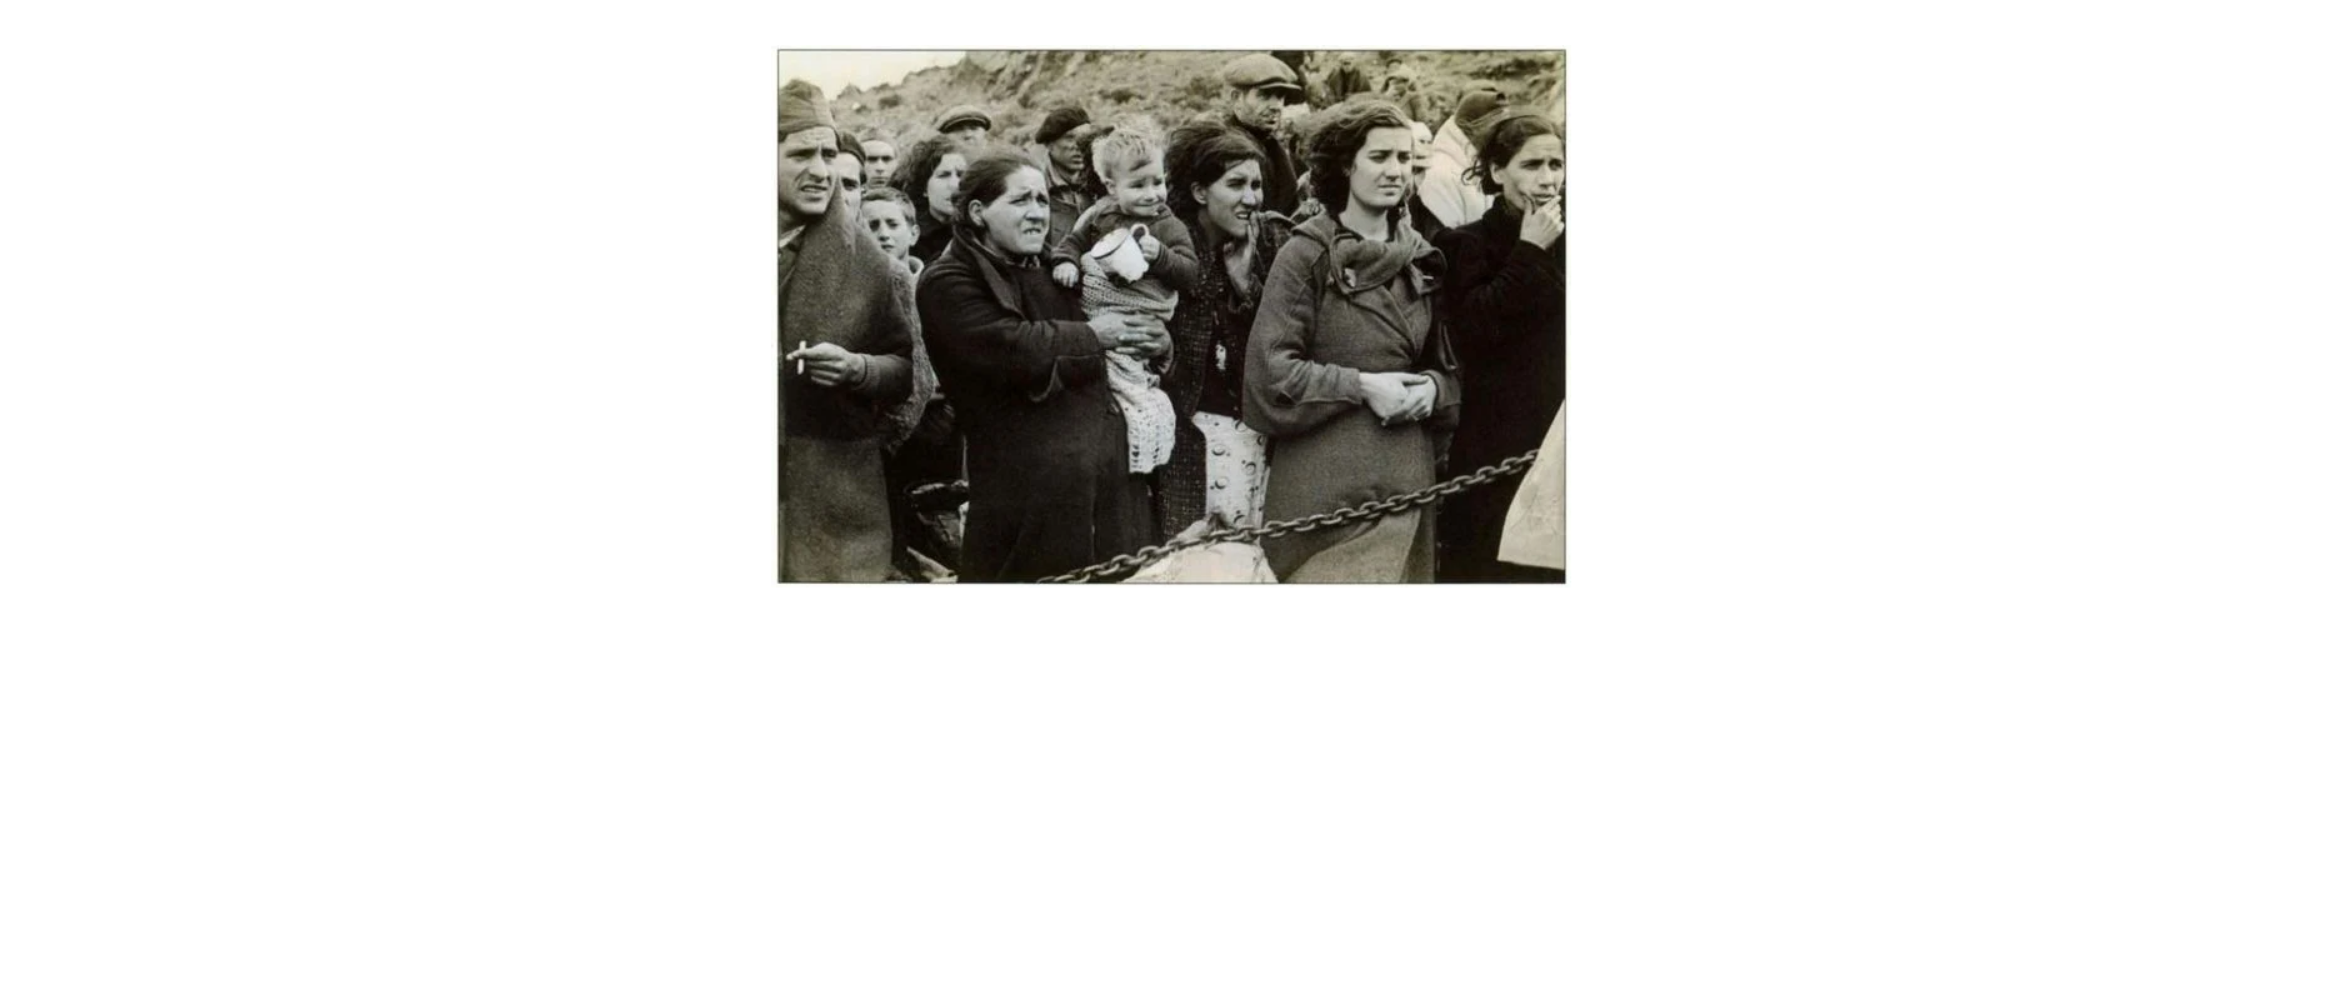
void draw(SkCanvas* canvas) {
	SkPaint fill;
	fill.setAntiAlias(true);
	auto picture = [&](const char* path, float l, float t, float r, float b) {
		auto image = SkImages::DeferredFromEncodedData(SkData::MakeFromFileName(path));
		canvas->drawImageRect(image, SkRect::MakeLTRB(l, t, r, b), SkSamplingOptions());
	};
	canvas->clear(0xFFFFFFFF);
	picture("image0.png", 771, 45, 1572, 588);
}
